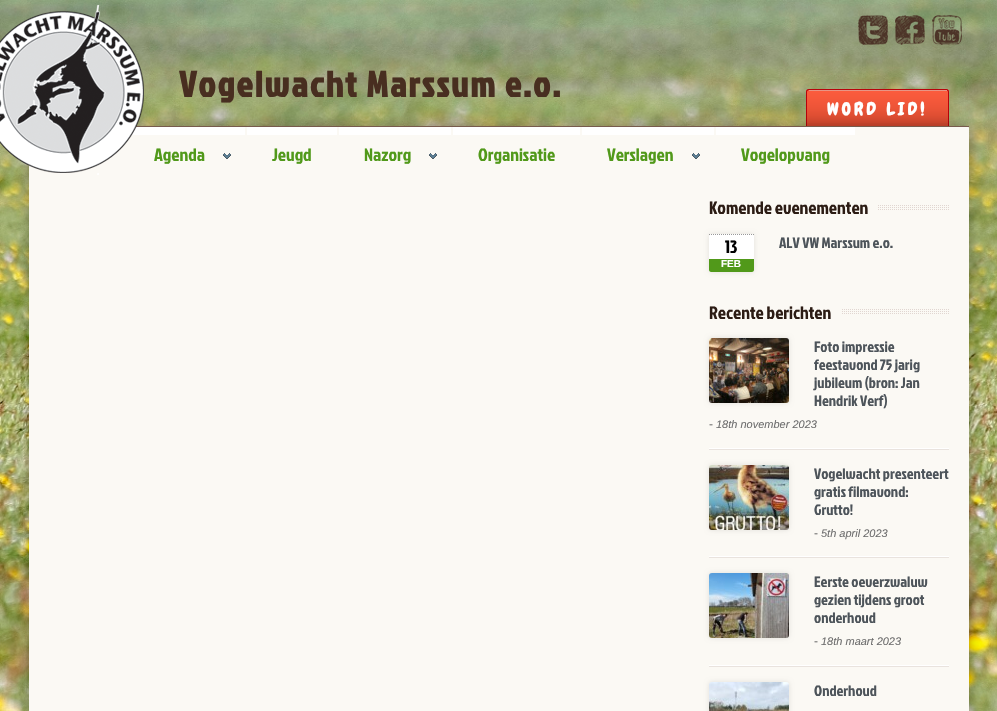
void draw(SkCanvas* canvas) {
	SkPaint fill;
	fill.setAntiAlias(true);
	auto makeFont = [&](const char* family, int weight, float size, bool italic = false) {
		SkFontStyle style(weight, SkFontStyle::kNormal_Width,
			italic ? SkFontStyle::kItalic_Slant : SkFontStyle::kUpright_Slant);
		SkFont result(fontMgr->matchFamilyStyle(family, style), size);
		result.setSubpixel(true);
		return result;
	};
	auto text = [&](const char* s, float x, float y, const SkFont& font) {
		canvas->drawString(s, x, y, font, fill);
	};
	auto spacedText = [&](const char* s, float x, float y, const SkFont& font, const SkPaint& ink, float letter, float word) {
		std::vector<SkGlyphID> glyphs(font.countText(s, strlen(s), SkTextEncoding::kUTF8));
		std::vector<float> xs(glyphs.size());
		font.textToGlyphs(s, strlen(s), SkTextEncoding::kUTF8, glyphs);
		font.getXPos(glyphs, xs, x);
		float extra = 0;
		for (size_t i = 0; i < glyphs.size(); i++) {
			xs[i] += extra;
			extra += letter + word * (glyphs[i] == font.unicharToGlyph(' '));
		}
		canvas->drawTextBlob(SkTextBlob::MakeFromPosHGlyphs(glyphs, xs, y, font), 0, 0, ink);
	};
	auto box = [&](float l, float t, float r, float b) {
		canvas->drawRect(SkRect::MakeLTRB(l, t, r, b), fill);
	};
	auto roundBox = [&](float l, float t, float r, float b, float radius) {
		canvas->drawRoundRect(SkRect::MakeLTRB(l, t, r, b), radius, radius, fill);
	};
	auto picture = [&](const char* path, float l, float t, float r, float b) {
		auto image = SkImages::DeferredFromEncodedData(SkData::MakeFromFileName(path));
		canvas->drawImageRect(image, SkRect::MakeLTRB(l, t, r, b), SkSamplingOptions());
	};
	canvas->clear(0xFFFFFFFF);
	picture("image0.png", 0, 0, 997, 711);
	fill.setColor(0xFFD84A2F);
	canvas->drawPath(SkPathBuilder().moveTo(809, 89).lineTo(946, 89).cubicTo(947.5f, 89, 949, 90.5f, 949, 92).lineTo(949, 126).lineTo(806, 126).lineTo(806, 92).cubicTo(806, 90.5f, 807.5f, 89, 809, 89).close().detach(), fill);
	picture("image5.png", 806, 90, 949, 123);
	fill.setColor(0xFFB8020B);
	canvas->drawPath(SkPathBuilder(SkPathFillType::kEvenOdd).moveTo(809, 89).lineTo(946, 89).cubicTo(948, 89, 949, 90, 949, 92).lineTo(949, 126).lineTo(806, 126).lineTo(806, 92).cubicTo(806, 90, 807, 89, 809, 89).close().moveTo(809, 90).lineTo(946, 90).cubicTo(947, 90, 948, 91, 948, 92).lineTo(948, 126).lineTo(807, 126).lineTo(807, 92).cubicTo(807, 91, 808, 90, 809, 90).close().detach(), fill);
	fill.setColor(0x4D000000);
	fill.setMaskFilter(SkMaskFilter::MakeBlur(kNormal_SkBlurStyle, 7.5f));
	canvas->drawRoundRect(SkRect::MakeLTRB(29, 126, 969, 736), 2, 2, fill);
	fill.setMaskFilter(nullptr);
	fill.setColor(0xFFFBF9F4);
	roundBox(29, 126, 969, 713, 2);
	fill.setColor(0xFF775B4D);
	box(129, 126, 969, 127);
	fill.setColor(0xFFFFFFFF);
	box(129, 127, 245, 135);
	picture("image1.png", 0, 5, 144, 175);
	picture("image2.png", 858, 15, 888, 45);
	picture("image3.png", 895, 15, 925, 45);
	picture("image4.png", 932, 15, 962, 45);
	fill.setColor(0xFFE89585);
	box(809, 90, 947, 91);
	picture("image6.png", 223, 153, 231, 159);
	fill.setColor(0xFFFFFFFF);
	box(247, 127, 337, 135);
	box(339, 127, 451, 135);
	picture("image6.png", 429, 153, 437, 159);
	box(453, 127, 580, 135);
	box(582, 127, 714, 135);
	picture("image6.png", 692, 153, 700, 159);
	box(716, 127, 855, 135);
	picture("image7.png", 878, 205, 949, 210);
	fill.setColor(0x1A000000);
	fill.setMaskFilter(SkMaskFilter::MakeBlur(kNormal_SkBlurStyle, 2.5f));
	canvas->drawRoundRect(SkRect::MakeLTRB(709, 234, 754, 272), 2, 2, fill);
	fill.setMaskFilter(nullptr);
	fill.setColor(0xFFFFFFFF);
	canvas->drawPath(SkPathBuilder().moveTo(711, 234).lineTo(752, 234).cubicTo(753, 234, 754, 235, 754, 236).lineTo(754, 272).lineTo(709, 272).lineTo(709, 236).cubicTo(709, 235, 710, 234, 711, 234).close().detach(), fill);
	fill.setStyle(SkPaint::kStroke_Style);
	fill.setStrokeWidth(1);
	fill.setColor(0xFF999999);
	fill.setPathEffect(SkDashPathEffect::Make({{1, 1}}, 0));
	canvas->drawPath(SkPathBuilder().moveTo(709, 234.5f).lineTo(754, 234.5f).detach(), fill);
	fill.setPathEffect(nullptr);
	fill.setStyle(SkPaint::kFill_Style);
	fill.setColor(0xFF51991A);
	canvas->drawPath(SkPathBuilder().moveTo(709, 259).lineTo(754, 259).lineTo(754, 270).cubicTo(754, 271, 753, 272, 752, 272).lineTo(711, 272).cubicTo(710, 272, 709, 271, 709, 270).close().detach(), fill);
	picture("image8.png", 842, 309, 949, 314);
	picture("image9.png", 709, 448, 949, 450);
	fill.setColor(0x1A000000);
	fill.setMaskFilter(SkMaskFilter::MakeBlur(kNormal_SkBlurStyle, 2.5f));
	canvas->drawRoundRect(SkRect::MakeLTRB(709, 338, 789, 403), 3, 3, fill);
	fill.setMaskFilter(nullptr);
	picture("image10.png", 709, 338, 789, 403);
	picture("image9.png", 709, 556, 949, 558);
	fill.setMaskFilter(SkMaskFilter::MakeBlur(kNormal_SkBlurStyle, 2.5f));
	canvas->drawRoundRect(SkRect::MakeLTRB(709, 465, 789, 530), 3, 3, fill);
	fill.setMaskFilter(nullptr);
	picture("image11.png", 709, 465, 789, 530);
	picture("image9.png", 709, 665, 949, 667);
	fill.setMaskFilter(SkMaskFilter::MakeBlur(kNormal_SkBlurStyle, 2.5f));
	canvas->drawRoundRect(SkRect::MakeLTRB(709, 573, 789, 638), 3, 3, fill);
	fill.setMaskFilter(nullptr);
	picture("image12.png", 709, 573, 789, 638);
	fill.setMaskFilter(SkMaskFilter::MakeBlur(kNormal_SkBlurStyle, 2.5f));
	canvas->drawRoundRect(SkRect::MakeLTRB(709, 682, 789, 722), 3, 3, fill);
	fill.setMaskFilter(nullptr);
	picture("image13.png", 709, 682, 789, 711);
	auto font1 = makeFont("Jockey One", 700, 36);
	fill.setColor(0xFF482E20);
	spacedText("Vogelwacht Marssum e.o.", 179, 97, font1, fill, 2, 0);
	auto font2 = makeFont("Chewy", 400, 18);
	fill.setColor(0xFFFFFFFF);
	spacedText("WORD LID!", 827, 115, font2, fill, 3, 0);
	auto font3 = makeFont("Jockey One", 400, 18);
	fill.setColor(0xFF51991A);
	text("Agenda", 154, 161, font3);
	text("Jeugd", 272, 161, font3);
	text("Nazorg", 364, 161, font3);
	text("Organisatie", 478, 161, font3);
	text("Verslagen", 607, 161, font3);
	text("Vogelopvang", 741, 161, font3);
	fill.setColor(0xFF2C1C14);
	text("Komende evenementen", 709, 214, font3);
	fill.setColor(0xFF000000);
	text("13", 725, 253, font3);
	auto font4 = makeFont("Liberation Sans", 700, 10);
	fill.setColor(0xFFFFFFFF);
	text("FEB", 721, 267, font4);
	auto font5 = makeFont("Jockey One", 400, 15);
	fill.setColor(0xFF4D545A);
	text("ALV VW Marssum e.o.", 779, 248, font5);
	fill.setColor(0xFF2C1C14);
	text("Recente berichten", 709, 319, font3);
	fill.setColor(0xFF4D545A);
	text("Foto impressie", 814, 352, font5);
	text("feestavond 75 jarig", 814, 370, font5);
	text("jubileum (bron: Jan", 814, 388, font5);
	text("Hendrik Verf)", 814, 406, font5);
	auto font6 = makeFont("Liberation Sans", 400, 12);
	fill.setColor(0xFF6E6E6E);
	text("-", 709, 428, font6);
	auto font7 = makeFont("Liberation Sans", 400, 11, true);
	text("18th november 2023", 716, 428, font7);
	fill.setColor(0xFF4D545A);
	text("Vogelwacht presenteert", 814, 479, font5);
	text("gratis filmavond:", 814, 497, font5);
	text("Grutto!", 814, 515, font5);
	fill.setColor(0xFF6E6E6E);
	text("-", 814, 537, font6);
	text("5th april 2023", 821, 537, font7);
	fill.setColor(0xFF4D545A);
	text("Eerste oeverzwaluw", 814, 587, font5);
	text("gezien tijdens groot", 814, 605, font5);
	text("onderhoud", 814, 623, font5);
	fill.setColor(0xFF6E6E6E);
	text("-", 814, 645, font6);
	text("18th maart 2023", 821, 645, font7);
	fill.setColor(0xFF4D545A);
	text("Onderhoud", 814, 696, font5);
}
